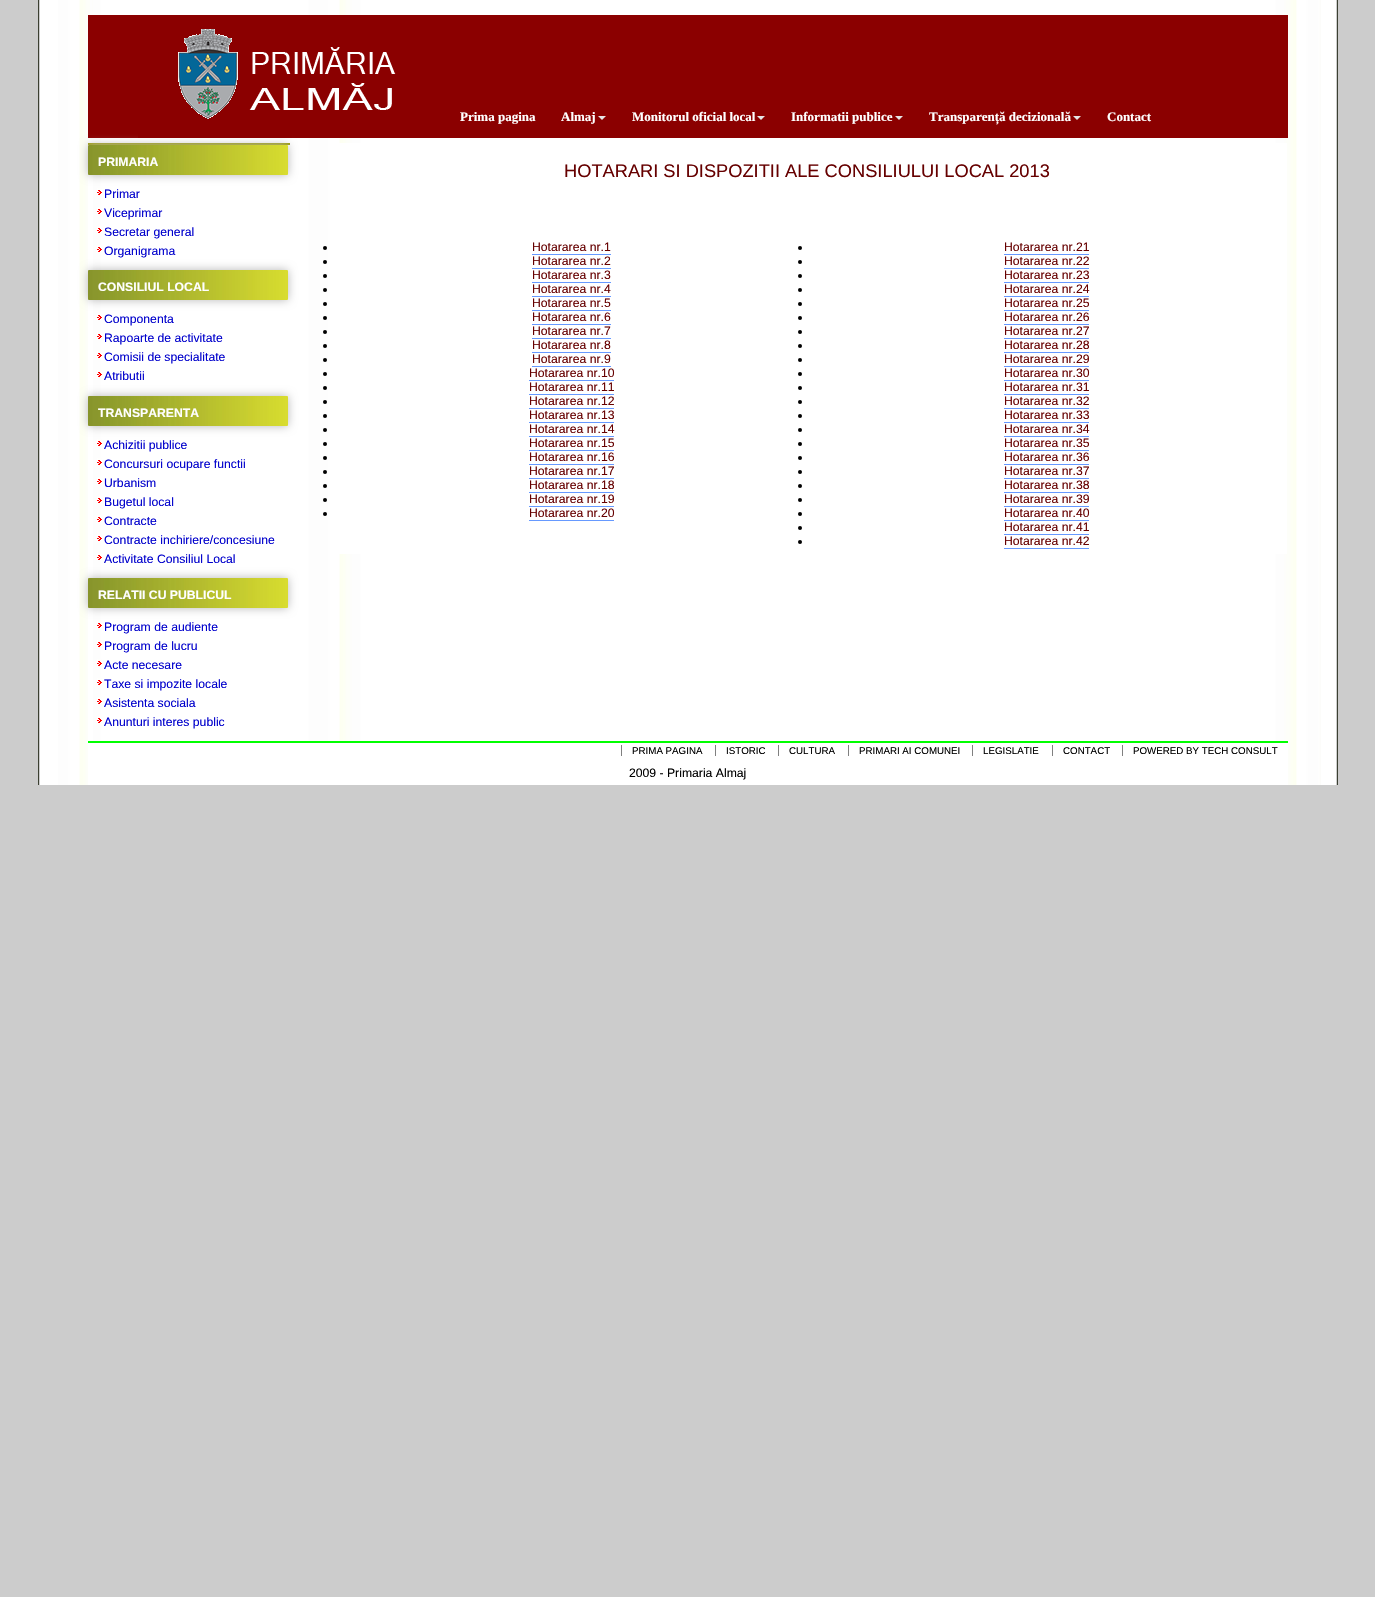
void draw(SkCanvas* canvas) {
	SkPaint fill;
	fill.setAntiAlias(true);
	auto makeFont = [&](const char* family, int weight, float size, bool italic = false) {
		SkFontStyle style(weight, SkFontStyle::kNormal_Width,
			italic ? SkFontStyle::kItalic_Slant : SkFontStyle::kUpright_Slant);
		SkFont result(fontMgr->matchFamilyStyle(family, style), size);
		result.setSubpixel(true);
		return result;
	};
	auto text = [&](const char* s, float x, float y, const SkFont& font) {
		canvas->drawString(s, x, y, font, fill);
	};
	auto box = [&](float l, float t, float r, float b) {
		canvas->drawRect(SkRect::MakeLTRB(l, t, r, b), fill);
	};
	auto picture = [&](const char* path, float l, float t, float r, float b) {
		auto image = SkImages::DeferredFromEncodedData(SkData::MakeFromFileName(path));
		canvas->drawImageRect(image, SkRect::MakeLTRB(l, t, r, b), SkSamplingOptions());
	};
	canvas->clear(0xFFCCCCCC);
	picture("image0.png", 38, 0, 1338, 785);
	fill.setColor(0xFF8B0000);
	box(88, 15, 1288, 138);
	fill.setColor(0xFF999900);
	box(88, 143, 290, 145);
	fill.setColor(0xFFFFFFFF);
	box(88, 145, 93, 741);
	fill.setColor(0xFFB7B7B7);
	fill.setMaskFilter(SkMaskFilter::MakeBlur(kNormal_SkBlurStyle, 5));
	canvas->drawRoundRect(SkRect::MakeLTRB(88, 145, 288, 175), 1, 1, fill);
	fill.setMaskFilter(nullptr);
	fill.setColor(0xFF8B0000);
	box(138, 134, 292, 138);
	picture("image1.png", 178, 29, 396, 119);
	fill.setColor(0xFFE6E6E6);
	canvas->drawPath(SkPathBuilder().moveTo(598, 116).lineTo(606, 116).lineTo(602, 120).close().detach(), fill);
	canvas->drawPath(SkPathBuilder().moveTo(757, 116).lineTo(765, 116).lineTo(761, 120).close().detach(), fill);
	canvas->drawPath(SkPathBuilder().moveTo(895, 116).lineTo(903, 116).lineTo(899, 120).close().detach(), fill);
	canvas->drawPath(SkPathBuilder().moveTo(1073, 116).lineTo(1081, 116).lineTo(1077, 120).close().detach(), fill);
	picture("image2.png", 88, 145, 288, 175);
	picture("image3.png", 97, 188, 102, 195);
	picture("image3.png", 97, 207, 102, 214);
	picture("image3.png", 97, 226, 102, 233);
	picture("image3.png", 97, 245, 102, 252);
	fill.setColor(0xFFB7B7B7);
	fill.setMaskFilter(SkMaskFilter::MakeBlur(kNormal_SkBlurStyle, 5));
	canvas->drawRoundRect(SkRect::MakeLTRB(88, 270, 288, 300), 1, 1, fill);
	fill.setMaskFilter(nullptr);
	picture("image2.png", 88, 270, 288, 300);
	picture("image3.png", 97, 313, 102, 320);
	picture("image3.png", 97, 332, 102, 339);
	picture("image3.png", 97, 351, 102, 358);
	picture("image3.png", 97, 370, 102, 377);
	fill.setMaskFilter(SkMaskFilter::MakeBlur(kNormal_SkBlurStyle, 5));
	canvas->drawRoundRect(SkRect::MakeLTRB(88, 396, 288, 426), 1, 1, fill);
	fill.setMaskFilter(nullptr);
	picture("image2.png", 88, 396, 288, 426);
	picture("image3.png", 97, 439, 102, 446);
	picture("image3.png", 97, 458, 102, 465);
	picture("image3.png", 97, 477, 102, 484);
	picture("image3.png", 97, 496, 102, 503);
	picture("image3.png", 97, 515, 102, 522);
	picture("image3.png", 97, 534, 102, 541);
	picture("image3.png", 97, 553, 102, 560);
	fill.setMaskFilter(SkMaskFilter::MakeBlur(kNormal_SkBlurStyle, 5));
	canvas->drawRoundRect(SkRect::MakeLTRB(88, 578, 288, 608), 1, 1, fill);
	fill.setMaskFilter(nullptr);
	picture("image2.png", 88, 578, 288, 608);
	picture("image3.png", 97, 621, 102, 628);
	picture("image3.png", 97, 640, 102, 647);
	picture("image3.png", 97, 659, 102, 666);
	picture("image3.png", 97, 678, 102, 685);
	picture("image3.png", 97, 697, 102, 704);
	picture("image3.png", 97, 716, 102, 723);
	fill.setColor(0xFFFFFFFF);
	box(339, 143, 1287, 554);
	fill.setColor(0xFF000000);
	canvas->drawCircle(325, 248, 2, fill);
	fill.setColor(0xFF6699FF);
	box(532, 254, 611, 255);
	fill.setColor(0xFF000000);
	canvas->drawCircle(325, 262, 2, fill);
	fill.setColor(0xFF6699FF);
	box(532, 268, 611, 269);
	fill.setColor(0xFF000000);
	canvas->drawCircle(325, 276, 2, fill);
	fill.setColor(0xFF6699FF);
	box(532, 282, 611, 283);
	fill.setColor(0xFF000000);
	canvas->drawCircle(325, 290, 2, fill);
	fill.setColor(0xFF6699FF);
	box(532, 296, 611, 297);
	fill.setColor(0xFF000000);
	canvas->drawCircle(325, 304, 2, fill);
	fill.setColor(0xFF6699FF);
	box(532, 310, 611, 311);
	fill.setColor(0xFF000000);
	canvas->drawCircle(325, 318, 2, fill);
	fill.setColor(0xFF6699FF);
	box(532, 324, 611, 325);
	fill.setColor(0xFF000000);
	canvas->drawCircle(325, 332, 2, fill);
	fill.setColor(0xFF6699FF);
	box(532, 338, 611, 339);
	fill.setColor(0xFF000000);
	canvas->drawCircle(325, 346, 2, fill);
	fill.setColor(0xFF6699FF);
	box(532, 352, 611, 353);
	fill.setColor(0xFF000000);
	canvas->drawCircle(325, 360, 2, fill);
	fill.setColor(0xFF6699FF);
	box(532, 366, 611, 367);
	fill.setColor(0xFF000000);
	canvas->drawCircle(325, 374, 2, fill);
	fill.setColor(0xFF6699FF);
	box(529, 380, 614, 381);
	fill.setColor(0xFF000000);
	canvas->drawCircle(325, 388, 2, fill);
	fill.setColor(0xFF6699FF);
	box(529, 394, 614, 395);
	fill.setColor(0xFF000000);
	canvas->drawCircle(325, 402, 2, fill);
	fill.setColor(0xFF6699FF);
	box(529, 408, 614, 409);
	fill.setColor(0xFF000000);
	canvas->drawCircle(325, 416, 2, fill);
	fill.setColor(0xFF6699FF);
	box(529, 422, 614, 423);
	fill.setColor(0xFF000000);
	canvas->drawCircle(325, 430, 2, fill);
	fill.setColor(0xFF6699FF);
	box(529, 436, 614, 437);
	fill.setColor(0xFF000000);
	canvas->drawCircle(325, 444, 2, fill);
	fill.setColor(0xFF6699FF);
	box(529, 450, 614, 451);
	fill.setColor(0xFF000000);
	canvas->drawCircle(325, 458, 2, fill);
	fill.setColor(0xFF6699FF);
	box(529, 464, 614, 465);
	fill.setColor(0xFF000000);
	canvas->drawCircle(325, 472, 2, fill);
	fill.setColor(0xFF6699FF);
	box(529, 478, 614, 479);
	fill.setColor(0xFF000000);
	canvas->drawCircle(325, 486, 2, fill);
	fill.setColor(0xFF6699FF);
	box(529, 492, 614, 493);
	fill.setColor(0xFF000000);
	canvas->drawCircle(325, 500, 2, fill);
	fill.setColor(0xFF6699FF);
	box(529, 506, 614, 507);
	fill.setColor(0xFF000000);
	canvas->drawCircle(325, 514, 2, fill);
	fill.setColor(0xFF6699FF);
	box(529, 520, 614, 521);
	fill.setColor(0xFF000000);
	canvas->drawCircle(800, 248, 2, fill);
	fill.setColor(0xFF6699FF);
	box(1004, 254, 1089, 255);
	fill.setColor(0xFF000000);
	canvas->drawCircle(800, 262, 2, fill);
	fill.setColor(0xFF6699FF);
	box(1004, 268, 1089, 269);
	fill.setColor(0xFF000000);
	canvas->drawCircle(800, 276, 2, fill);
	fill.setColor(0xFF6699FF);
	box(1004, 282, 1089, 283);
	fill.setColor(0xFF000000);
	canvas->drawCircle(800, 290, 2, fill);
	fill.setColor(0xFF6699FF);
	box(1004, 296, 1089, 297);
	fill.setColor(0xFF000000);
	canvas->drawCircle(800, 304, 2, fill);
	fill.setColor(0xFF6699FF);
	box(1004, 310, 1089, 311);
	fill.setColor(0xFF000000);
	canvas->drawCircle(800, 318, 2, fill);
	fill.setColor(0xFF6699FF);
	box(1004, 324, 1089, 325);
	fill.setColor(0xFF000000);
	canvas->drawCircle(800, 332, 2, fill);
	fill.setColor(0xFF6699FF);
	box(1004, 338, 1089, 339);
	fill.setColor(0xFF000000);
	canvas->drawCircle(800, 346, 2, fill);
	fill.setColor(0xFF6699FF);
	box(1004, 352, 1089, 353);
	fill.setColor(0xFF000000);
	canvas->drawCircle(800, 360, 2, fill);
	fill.setColor(0xFF6699FF);
	box(1004, 366, 1089, 367);
	fill.setColor(0xFF000000);
	canvas->drawCircle(800, 374, 2, fill);
	fill.setColor(0xFF6699FF);
	box(1004, 380, 1089, 381);
	fill.setColor(0xFF000000);
	canvas->drawCircle(800, 388, 2, fill);
	fill.setColor(0xFF6699FF);
	box(1004, 394, 1089, 395);
	fill.setColor(0xFF000000);
	canvas->drawCircle(800, 402, 2, fill);
	fill.setColor(0xFF6699FF);
	box(1004, 408, 1089, 409);
	fill.setColor(0xFF000000);
	canvas->drawCircle(800, 416, 2, fill);
	fill.setColor(0xFF6699FF);
	box(1004, 422, 1089, 423);
	fill.setColor(0xFF000000);
	canvas->drawCircle(800, 430, 2, fill);
	fill.setColor(0xFF6699FF);
	box(1004, 436, 1089, 437);
	fill.setColor(0xFF000000);
	canvas->drawCircle(800, 444, 2, fill);
	fill.setColor(0xFF6699FF);
	box(1004, 450, 1089, 451);
	fill.setColor(0xFF000000);
	canvas->drawCircle(800, 458, 2, fill);
	fill.setColor(0xFF6699FF);
	box(1004, 464, 1089, 465);
	fill.setColor(0xFF000000);
	canvas->drawCircle(800, 472, 2, fill);
	fill.setColor(0xFF6699FF);
	box(1004, 478, 1089, 479);
	fill.setColor(0xFF000000);
	canvas->drawCircle(800, 486, 2, fill);
	fill.setColor(0xFF6699FF);
	box(1004, 492, 1089, 493);
	fill.setColor(0xFF000000);
	canvas->drawCircle(800, 500, 2, fill);
	fill.setColor(0xFF6699FF);
	box(1004, 506, 1089, 507);
	fill.setColor(0xFF000000);
	canvas->drawCircle(800, 514, 2, fill);
	fill.setColor(0xFF6699FF);
	box(1004, 520, 1089, 521);
	fill.setColor(0xFF000000);
	canvas->drawCircle(800, 528, 2, fill);
	fill.setColor(0xFF6699FF);
	box(1004, 534, 1089, 535);
	fill.setColor(0xFF000000);
	canvas->drawCircle(800, 542, 2, fill);
	fill.setColor(0xFF6699FF);
	box(1004, 548, 1089, 549);
	fill.setColor(0xFFFFFFFF);
	box(88, 743, 1288, 785);
	fill.setColor(0xFF00FF00);
	box(88, 741, 1288, 743);
	fill.setColor(0xFF808080);
	box(621, 745, 622, 756);
	box(715, 745, 716, 756);
	box(778, 745, 779, 756);
	box(848, 745, 849, 756);
	box(972, 745, 973, 756);
	box(1052, 745, 1053, 756);
	box(1122, 745, 1123, 756);
	auto font1 = makeFont("Liberation Serif", 700, 13);
	fill.setColor(0xFFFFFFFF);
	text("Prima pagina", 460, 121, font1);
	text("Almaj", 561, 121, font1);
	text("Monitorul oficial local", 632, 121, font1);
	text("Informatii publice", 791, 121, font1);
	text("Transparență decizională", 929, 121, font1);
	text("Contact", 1107, 121, font1);
	auto font2 = makeFont("Liberation Sans", 700, 12.2f);
	text("PRIMARIA", 98, 166, font2);
	auto font3 = makeFont("Liberation Sans", 400, 12.2f);
	fill.setColor(0xFF0000CC);
	text("Primar", 104, 198, font3);
	text("Viceprimar", 104, 217, font3);
	text("Secretar general", 104, 236, font3);
	text("Organigrama", 104, 255, font3);
	fill.setColor(0xFFFFFFFF);
	text("CONSILIUL LOCAL", 98, 291, font2);
	fill.setColor(0xFF0000CC);
	text("Componenta", 104, 323, font3);
	text("Rapoarte de activitate", 104, 342, font3);
	text("Comisii de specialitate", 104, 361, font3);
	text("Atributii", 104, 380, font3);
	fill.setColor(0xFFFFFFFF);
	text("TRANSPARENTA", 98, 417, font2);
	fill.setColor(0xFF0000CC);
	text("Achizitii publice", 104, 449, font3);
	text("Concursuri ocupare functii", 104, 468, font3);
	text("Urbanism", 104, 487, font3);
	text("Bugetul local", 104, 506, font3);
	text("Contracte", 104, 525, font3);
	text("Contracte inchiriere/concesiune", 104, 544, font3);
	text("Activitate Consiliul Local", 104, 563, font3);
	fill.setColor(0xFFFFFFFF);
	text("RELATII CU PUBLICUL", 98, 599, font2);
	fill.setColor(0xFF0000CC);
	text("Program de audiente", 104, 631, font3);
	text("Program de lucru", 104, 650, font3);
	text("Acte necesare", 104, 669, font3);
	text("Taxe si impozite locale", 104, 688, font3);
	text("Asistenta sociala", 104, 707, font3);
	text("Anunturi interes public", 104, 726, font3);
	auto font4 = makeFont("Liberation Sans", 400, 18.25f);
	fill.setColor(0xFF660000);
	text("HOTARARI SI DISPOZITII ALE CONSILIULUI LOCAL 2013", 564, 177, font4);
	text("Hotararea nr.1", 532, 251, font3);
	text("Hotararea nr.2", 532, 265, font3);
	text("Hotararea nr.3", 532, 279, font3);
	text("Hotararea nr.4", 532, 293, font3);
	text("Hotararea nr.5", 532, 307, font3);
	text("Hotararea nr.6", 532, 321, font3);
	text("Hotararea nr.7", 532, 335, font3);
	text("Hotararea nr.8", 532, 349, font3);
	text("Hotararea nr.9", 532, 363, font3);
	text("Hotararea nr.10", 529, 377, font3);
	text("Hotararea nr.11", 529, 391, font3);
	text("Hotararea nr.12", 529, 405, font3);
	text("Hotararea nr.13", 529, 419, font3);
	text("Hotararea nr.14", 529, 433, font3);
	text("Hotararea nr.15", 529, 447, font3);
	text("Hotararea nr.16", 529, 461, font3);
	text("Hotararea nr.17", 529, 475, font3);
	text("Hotararea nr.18", 529, 489, font3);
	text("Hotararea nr.19", 529, 503, font3);
	text("Hotararea nr.20", 529, 517, font3);
	text("Hotararea nr.21", 1004, 251, font3);
	text("Hotararea nr.22", 1004, 265, font3);
	text("Hotararea nr.23", 1004, 279, font3);
	text("Hotararea nr.24", 1004, 293, font3);
	text("Hotararea nr.25", 1004, 307, font3);
	text("Hotararea nr.26", 1004, 321, font3);
	text("Hotararea nr.27", 1004, 335, font3);
	text("Hotararea nr.28", 1004, 349, font3);
	text("Hotararea nr.29", 1004, 363, font3);
	text("Hotararea nr.30", 1004, 377, font3);
	text("Hotararea nr.31", 1004, 391, font3);
	text("Hotararea nr.32", 1004, 405, font3);
	text("Hotararea nr.33", 1004, 419, font3);
	text("Hotararea nr.34", 1004, 433, font3);
	text("Hotararea nr.35", 1004, 447, font3);
	text("Hotararea nr.36", 1004, 461, font3);
	text("Hotararea nr.37", 1004, 475, font3);
	text("Hotararea nr.38", 1004, 489, font3);
	text("Hotararea nr.39", 1004, 503, font3);
	text("Hotararea nr.40", 1004, 517, font3);
	text("Hotararea nr.41", 1004, 531, font3);
	text("Hotararea nr.42", 1004, 545, font3);
	auto font5 = makeFont("Liberation Sans", 400, 9.75f);
	fill.setColor(0xFF000000);
	text("PRIMA PAGINA", 632, 754, font5);
	text("ISTORIC", 726, 754, font5);
	text("CULTURA", 789, 754, font5);
	text("PRIMARI AI COMUNEI", 859, 754, font5);
	text("LEGISLATIE", 983, 754, font5);
	text("CONTACT", 1063, 754, font5);
	text("POWERED BY TECH CONSULT", 1133, 754, font5);
	text("2009 - Primaria Almaj", 629, 777, font3);
}
